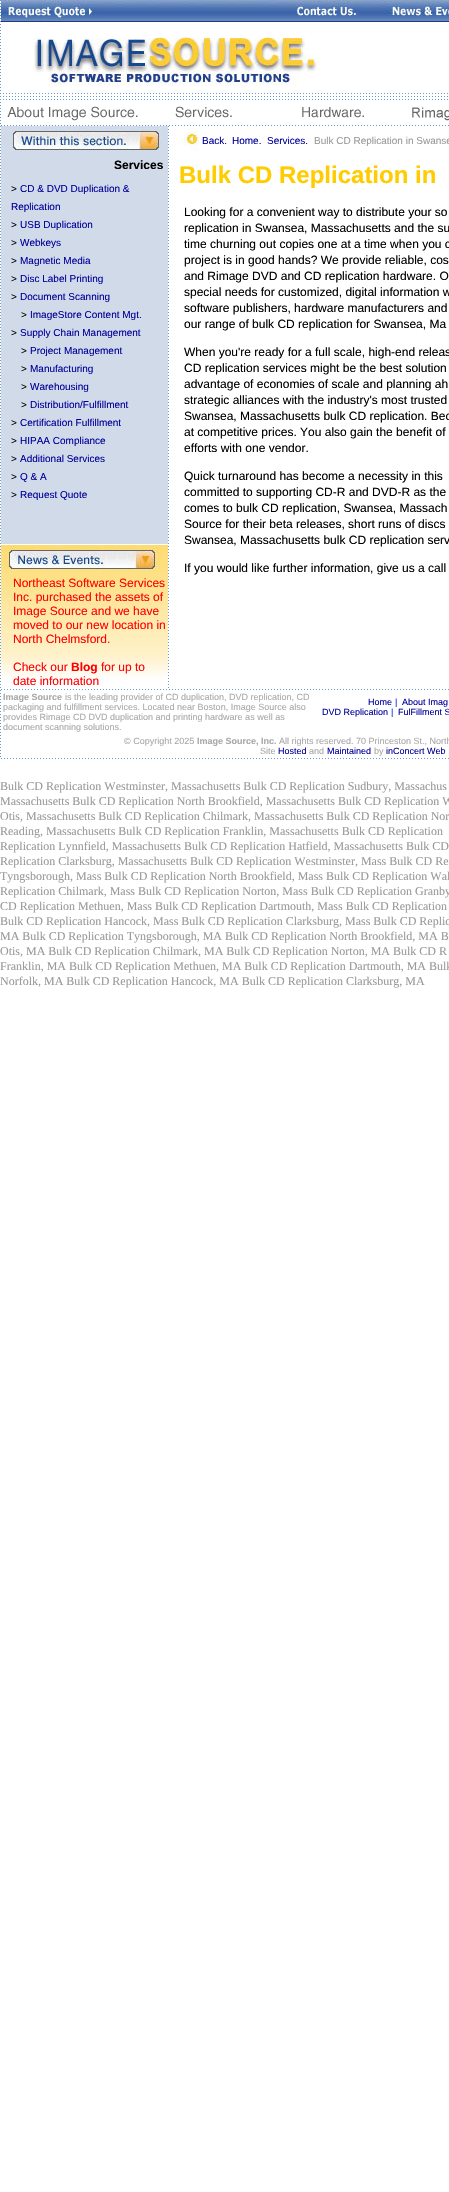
void draw(SkCanvas* canvas) {
	SkPaint fill;
	fill.setAntiAlias(true);
	auto makeFont = [&](const char* family, int weight, float size, bool italic = false) {
		SkFontStyle style(weight, SkFontStyle::kNormal_Width,
			italic ? SkFontStyle::kItalic_Slant : SkFontStyle::kUpright_Slant);
		SkFont result(fontMgr->matchFamilyStyle(family, style), size);
		result.setSubpixel(true);
		return result;
	};
	auto text = [&](const char* s, float x, float y, const SkFont& font) {
		canvas->drawString(s, x, y, font, fill);
	};
	auto box = [&](float l, float t, float r, float b) {
		canvas->drawRect(SkRect::MakeLTRB(l, t, r, b), fill);
	};
	auto picture = [&](const char* path, float l, float t, float r, float b) {
		auto image = SkImages::DeferredFromEncodedData(SkData::MakeFromFileName(path));
		canvas->drawImageRect(image, SkRect::MakeLTRB(l, t, r, b), SkSamplingOptions());
	};
	canvas->clear(0xFFFFFFFF);
	picture("image0.png", 0, 0, 1, 757);
	picture("image1.png", 103, 0, 449, 22);
	picture("image2.png", 1, 0, 103, 22);
	picture("image3.png", 140, 0, 248, 8);
	picture("image4.png", 287, 0, 359, 16);
	picture("image5.png", 385, 0, 449, 16);
	picture("image6.png", 33, 30, 321, 86);
	picture("image7.png", 3, 93, 448, 100);
	picture("image8.png", 7, 106, 138, 121);
	picture("image9.png", 175, 106, 232, 118);
	picture("image10.png", 302, 107, 364, 118);
	picture("image11.png", 412, 107, 449, 121);
	picture("image12.png", 1, 125, 449, 126);
	fill.setColor(0xFFD1DAE9);
	box(1, 126, 168, 544);
	picture("image13.png", 9, 126, 161, 150);
	picture("image14.png", 1, 545, 168, 569);
	picture("image15.png", 1, 569, 168, 680);
	picture("image16.png", 168, 126, 169, 688);
	picture("image17.png", 184, 128, 199, 151);
	picture("image12.png", 1, 689, 449, 690);
	picture("image12.png", 1, 758, 449, 759);
	auto font1 = makeFont("Liberation Sans", 700, 12);
	fill.setColor(0xFF000000);
	text("Services", 114, 169, font1);
	auto font2 = makeFont("Liberation Sans", 400, 10);
	text(">", 11, 192, font2);
	fill.setColor(0xFF000099);
	text("CD & DVD Duplication &", 20, 192, font2);
	text("Replication", 11, 210, font2);
	fill.setColor(0xFF000000);
	text(">", 11, 228, font2);
	fill.setColor(0xFF000099);
	text("USB Duplication", 20, 228, font2);
	fill.setColor(0xFF000000);
	text(">", 11, 246, font2);
	fill.setColor(0xFF000099);
	text("Webkeys", 20, 246, font2);
	fill.setColor(0xFF000000);
	text(">", 11, 264, font2);
	fill.setColor(0xFF000099);
	text("Magnetic Media", 20, 264, font2);
	fill.setColor(0xFF000000);
	text(">", 11, 282, font2);
	fill.setColor(0xFF000099);
	text("Disc Label Printing", 20, 282, font2);
	fill.setColor(0xFF000000);
	text(">", 11, 300, font2);
	fill.setColor(0xFF000099);
	text("Document Scanning", 20, 300, font2);
	fill.setColor(0xFF000000);
	text(">", 21, 318, font2);
	fill.setColor(0xFF000099);
	text("ImageStore Content Mgt.", 30, 318, font2);
	fill.setColor(0xFF000000);
	text(">", 11, 336, font2);
	fill.setColor(0xFF000099);
	text("Supply Chain Management", 20, 336, font2);
	fill.setColor(0xFF000000);
	text(">", 21, 354, font2);
	fill.setColor(0xFF000099);
	text("Project Management", 30, 354, font2);
	fill.setColor(0xFF000000);
	text(">", 21, 372, font2);
	fill.setColor(0xFF000099);
	text("Manufacturing", 30, 372, font2);
	fill.setColor(0xFF000000);
	text(">", 21, 390, font2);
	fill.setColor(0xFF000099);
	text("Warehousing", 30, 390, font2);
	fill.setColor(0xFF000000);
	text(">", 21, 408, font2);
	fill.setColor(0xFF000099);
	text("Distribution/Fulfillment", 30, 408, font2);
	fill.setColor(0xFF000000);
	text(">", 11, 426, font2);
	fill.setColor(0xFF000099);
	text("Certification Fulfillment", 20, 426, font2);
	fill.setColor(0xFF000000);
	text(">", 11, 444, font2);
	fill.setColor(0xFF000099);
	text("HIPAA Compliance", 20, 444, font2);
	fill.setColor(0xFF000000);
	text(">", 11, 462, font2);
	fill.setColor(0xFF000099);
	text("Additional Services", 20, 462, font2);
	fill.setColor(0xFF000000);
	text(">", 11, 480, font2);
	fill.setColor(0xFF000099);
	text("Q & A", 20, 480, font2);
	fill.setColor(0xFF000000);
	text(">", 11, 498, font2);
	fill.setColor(0xFF000099);
	text("Request Quote", 20, 498, font2);
	auto font3 = makeFont("Liberation Sans", 400, 12);
	fill.setColor(0xFFFF0000);
	text("Northeast Software Services", 13, 587, font3);
	text("Inc. purchased the assets of", 13, 601, font3);
	text("Image Source and we have", 13, 615, font3);
	text("moved to our new location in", 13, 629, font3);
	text("North Chelmsford.", 13, 643, font3);
	text("Check our", 13, 671, font3);
	text("Blog", 71, 671, font1);
	text("for up to", 101, 671, font3);
	text("date information", 13, 685, font3);
	fill.setColor(0xFF000099);
	text("Back.", 202, 144, font2);
	text("Home.", 232, 144, font2);
	text("Services.", 267, 144, font2);
	fill.setColor(0xFF999999);
	text("Bulk CD Replication in Swanse", 314, 144, font2);
	auto font4 = makeFont("Liberation Sans", 700, 24);
	fill.setColor(0xFFFFCC00);
	text("Bulk CD Replication in", 179, 183, font4);
	fill.setColor(0xFF000000);
	text("Looking for a convenient way to distribute your so", 184, 216, font3);
	text("replication in Swansea, Massachusetts and the su", 184, 232, font3);
	text("time churning out copies one at a time when you c", 184, 248, font3);
	text("project is in good hands? We provide reliable, cos", 184, 264, font3);
	text("and Rimage DVD and CD replication hardware. O", 184, 280, font3);
	text("special needs for customized, digital information w", 184, 296, font3);
	text("software publishers, hardware manufacturers and", 184, 312, font3);
	text("our range of bulk CD replication for Swansea, Ma", 184, 328, font3);
	text("When you're ready for a full scale, high-end releas", 184, 356, font3);
	text("CD replication services might be the best solution", 184, 372, font3);
	text("advantage of economies of scale and planning ah", 184, 388, font3);
	text("strategic alliances with the industry's most trusted", 184, 404, font3);
	text("Swansea, Massachusetts bulk CD replication. Bec", 184, 420, font3);
	text("at competitive prices. You also gain the benefit of", 184, 436, font3);
	text("efforts with one vendor.", 184, 452, font3);
	text("Quick turnaround has become a necessity in this", 184, 480, font3);
	text("committed to supporting CD-R and DVD-R as the", 184, 496, font3);
	text("comes to bulk CD replication, Swansea, Massach", 184, 512, font3);
	text("Source for their beta releases, short runs of discs", 184, 528, font3);
	text("Swansea, Massachusetts bulk CD replication serv", 184, 544, font3);
	text("If you would like further information, give us a call", 184, 572, font3);
	auto font5 = makeFont("Liberation Sans", 700, 9);
	fill.setColor(0xFFA9A9A9);
	text("Image Source", 3, 700, font5);
	auto font6 = makeFont("Liberation Sans", 400, 9);
	text("is the leading provider of CD duplication, DVD replication, CD", 65, 700, font6);
	text("packaging and fulfillment services. Located near Boston, Image Source also", 3, 710, font6);
	text("provides Rimage CD DVD duplication and printing hardware as well as", 3, 720, font6);
	text("document scanning solutions.", 3, 730, font6);
	fill.setColor(0xFF000099);
	text("Home", 368, 705, font6);
	fill.setColor(0xFF0033CC);
	text("|", 395, 705, font6);
	fill.setColor(0xFF000099);
	text("About Imag", 402, 705, font6);
	text("DVD Replication", 322, 715, font6);
	fill.setColor(0xFF0033CC);
	text("|", 391, 715, font6);
	fill.setColor(0xFF000099);
	text("FulFillment S", 398, 715, font6);
	fill.setColor(0xFFA9A9A9);
	text("© Copyright 2025", 124, 744, font6);
	text("Image Source, Inc.", 197, 744, font5);
	text("All rights reserved. 70 Princeston St., North", 279, 744, font6);
	text("Site", 260, 754, font6);
	fill.setColor(0xFF000099);
	text("Hosted", 278, 754, font6);
	fill.setColor(0xFFA9A9A9);
	text("and", 309, 754, font6);
	fill.setColor(0xFF000099);
	text("Maintained", 327, 754, font6);
	fill.setColor(0xFFA9A9A9);
	text("by", 374, 754, font6);
	fill.setColor(0xFF000099);
	text("inConcert Web", 386, 754, font6);
	auto font7 = makeFont("Liberation Serif", 400, 12);
	fill.setColor(0xFF999999);
	text("Bulk CD Replication Westminster, Massachusetts Bulk CD Replication Sudbury, Massachus", 0, 790, font7);
	text("Massachusetts Bulk CD Replication North Brookfield, Massachusetts Bulk CD Replication W", 0, 805, font7);
	text("Otis, Massachusetts Bulk CD Replication Chilmark, Massachusetts Bulk CD Replication Nor", 0, 820, font7);
	text("Reading, Massachusetts Bulk CD Replication Franklin, Massachusetts Bulk CD Replication", 0, 835, font7);
	text("Replication Lynnfield, Massachusetts Bulk CD Replication Hatfield, Massachusetts Bulk CD", 0, 850, font7);
	text("Replication Clarksburg, Massachusetts Bulk CD Replication Westminster, Mass Bulk CD Re", 0, 865, font7);
	text("Tyngsborough, Mass Bulk CD Replication North Brookfield, Mass Bulk CD Replication Wal", 0, 880, font7);
	text("Replication Chilmark, Mass Bulk CD Replication Norton, Mass Bulk CD Replication Granby", 0, 895, font7);
	text("CD Replication Methuen, Mass Bulk CD Replication Dartmouth, Mass Bulk CD Replication", 0, 910, font7);
	text("Bulk CD Replication Hancock, Mass Bulk CD Replication Clarksburg, Mass Bulk CD Replic", 0, 925, font7);
	text("MA Bulk CD Replication Tyngsborough, MA Bulk CD Replication North Brookfield, MA B", 0, 940, font7);
	text("Otis, MA Bulk CD Replication Chilmark, MA Bulk CD Replication Norton, MA Bulk CD R", 0, 955, font7);
	text("Franklin, MA Bulk CD Replication Methuen, MA Bulk CD Replication Dartmouth, MA Bulk", 0, 970, font7);
	text("Norfolk, MA Bulk CD Replication Hancock, MA Bulk CD Replication Clarksburg, MA", 0, 985, font7);
}
